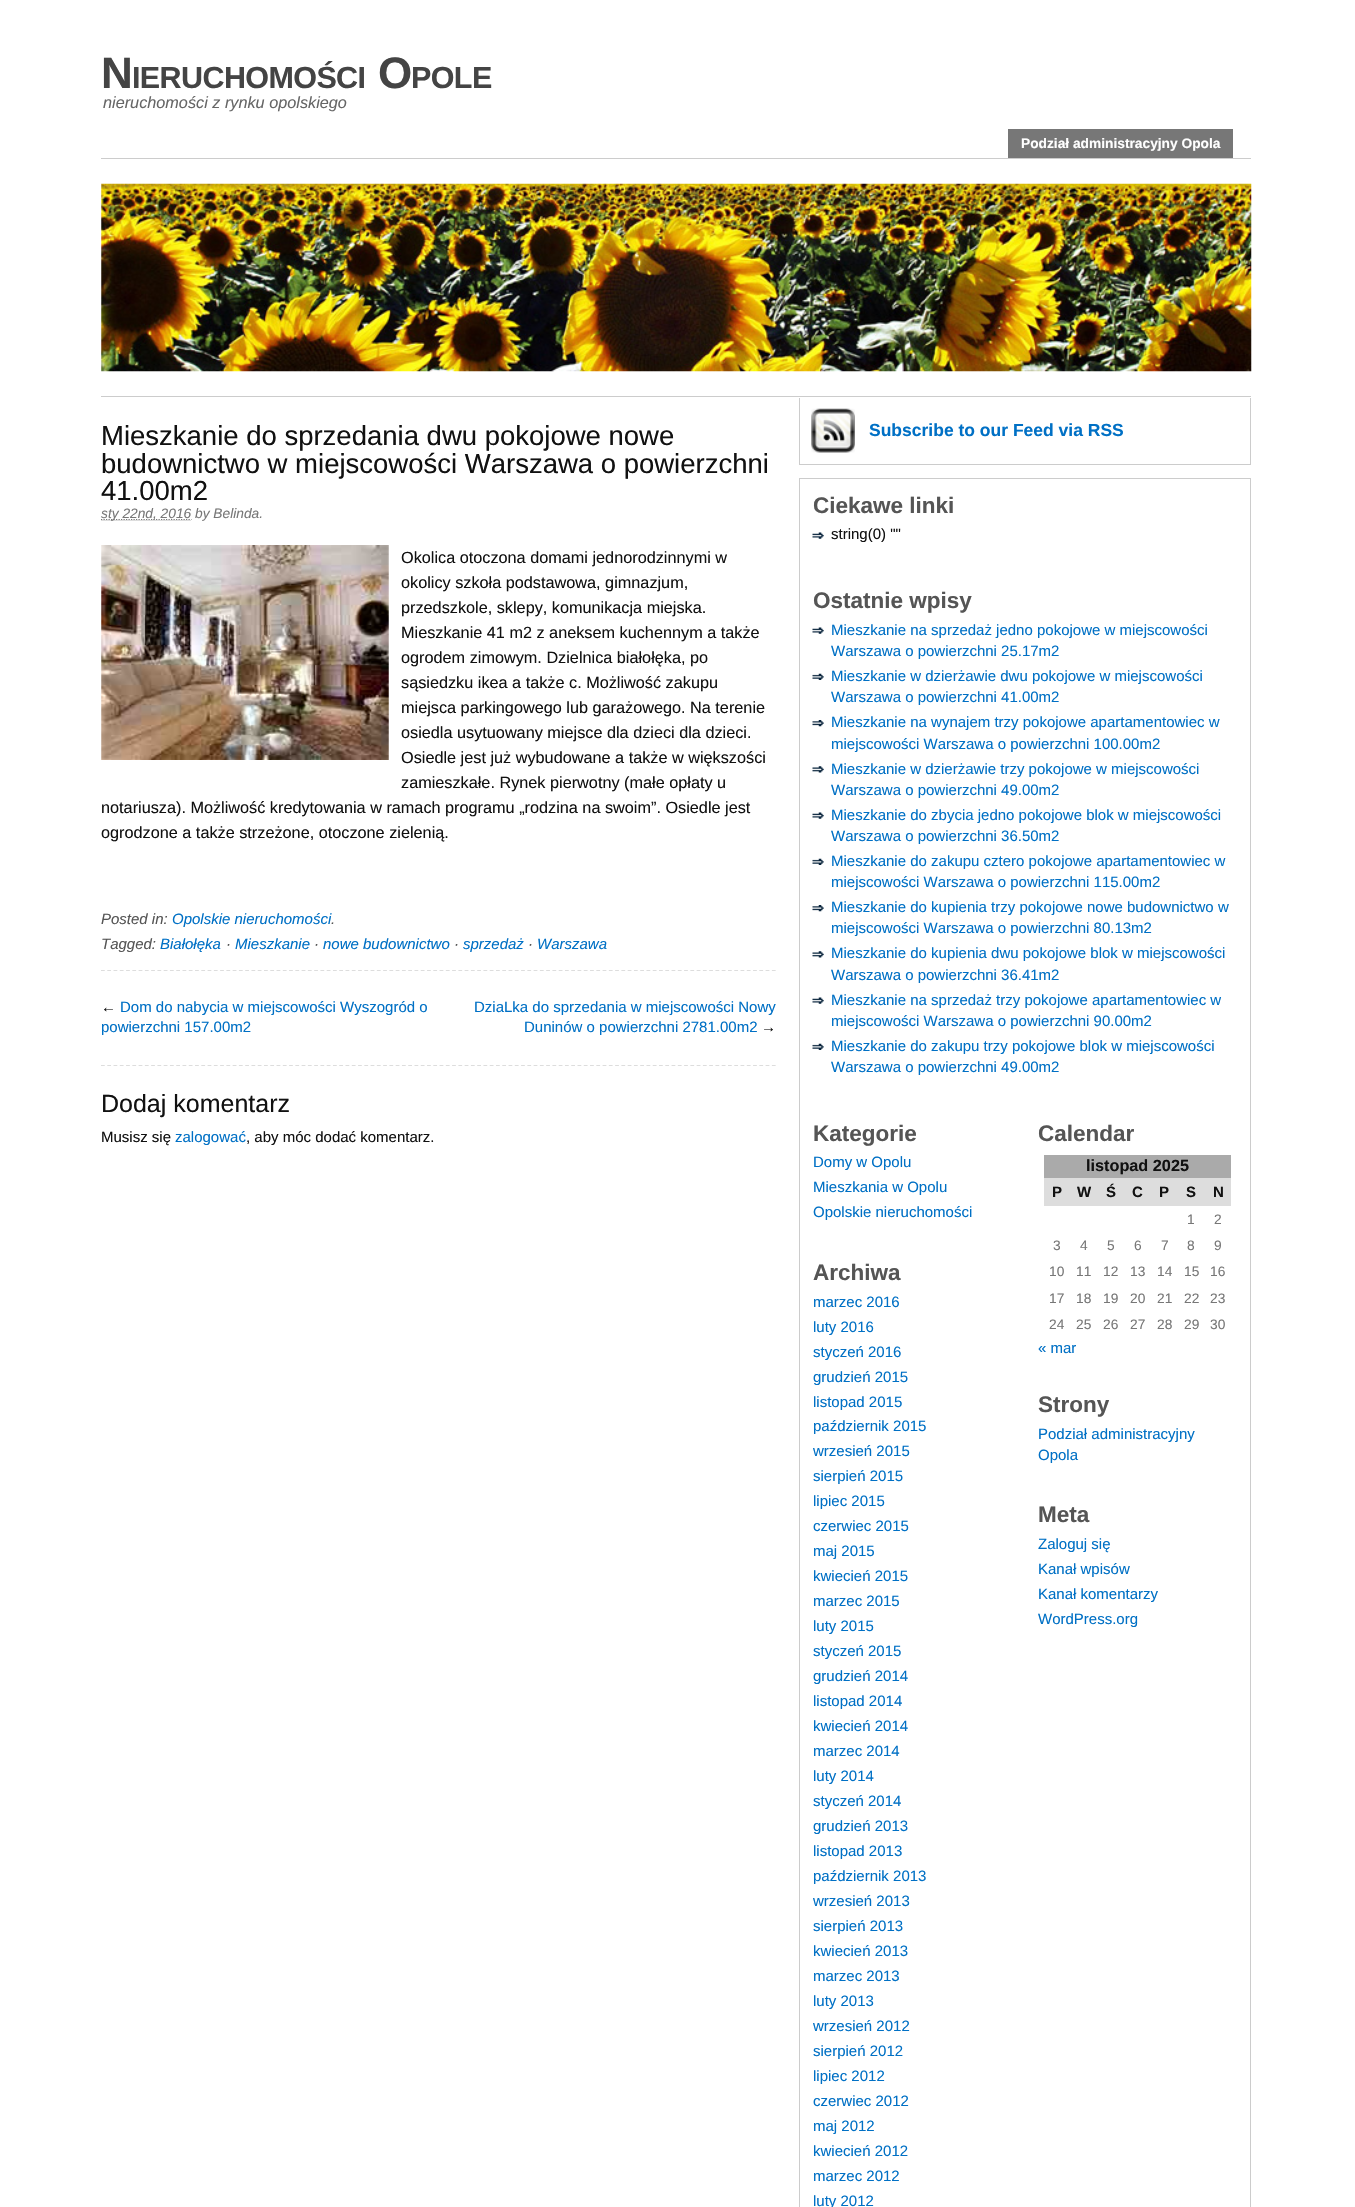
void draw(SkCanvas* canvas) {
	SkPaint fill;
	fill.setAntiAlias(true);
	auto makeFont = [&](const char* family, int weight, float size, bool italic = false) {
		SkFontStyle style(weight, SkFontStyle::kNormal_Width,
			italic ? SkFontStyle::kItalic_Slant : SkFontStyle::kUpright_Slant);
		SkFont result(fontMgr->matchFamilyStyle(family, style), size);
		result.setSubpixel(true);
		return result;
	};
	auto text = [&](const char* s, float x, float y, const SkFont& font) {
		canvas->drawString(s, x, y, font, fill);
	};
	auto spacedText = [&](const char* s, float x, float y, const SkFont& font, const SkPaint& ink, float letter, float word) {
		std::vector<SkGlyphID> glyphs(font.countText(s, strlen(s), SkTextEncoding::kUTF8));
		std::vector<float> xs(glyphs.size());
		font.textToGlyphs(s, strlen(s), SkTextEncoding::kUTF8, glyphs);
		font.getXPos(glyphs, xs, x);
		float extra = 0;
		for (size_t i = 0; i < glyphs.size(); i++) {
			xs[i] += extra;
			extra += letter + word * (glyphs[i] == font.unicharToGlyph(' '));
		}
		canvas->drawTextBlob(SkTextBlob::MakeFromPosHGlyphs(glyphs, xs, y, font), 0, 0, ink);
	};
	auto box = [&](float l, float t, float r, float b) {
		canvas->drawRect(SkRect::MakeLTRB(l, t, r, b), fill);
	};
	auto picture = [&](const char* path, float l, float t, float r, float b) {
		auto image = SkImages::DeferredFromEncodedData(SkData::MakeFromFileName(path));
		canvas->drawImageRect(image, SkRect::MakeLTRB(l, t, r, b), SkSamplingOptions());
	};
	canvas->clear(0xFFFFFFFF);
	fill.setColor(0xFF777777);
	box(1008, 129, 1233, 158);
	fill.setColor(0xFFCCCCCC);
	box(101, 158, 1251, 159);
	box(101, 396, 1251, 397);
	picture("image0.png", 101, 183, 1252, 372);
	fill.setStyle(SkPaint::kStroke_Style);
	fill.setStrokeWidth(1.2f);
	fill.setColor(0xFFDDDDDD);
	fill.setPathEffect(SkDashPathEffect::Make({{3.75f, 2.52f}}, 0));
	canvas->drawPath(SkPathBuilder().moveTo(101, 970.5f).lineTo(776, 970.5f).detach(), fill);
	fill.setPathEffect(nullptr);
	fill.setStyle(SkPaint::kFill_Style);
	box(101, 520, 191, 521);
	fill.setStyle(SkPaint::kStroke_Style);
	fill.setColor(0xFF777777);
	fill.setPathEffect(SkDashPathEffect::Make({{1.25f, 1.25f}}, 0));
	canvas->drawPath(SkPathBuilder().moveTo(101, 519.5f).lineTo(191.5f, 519.5f).detach(), fill);
	fill.setPathEffect(nullptr);
	picture("image1.png", 101, 545, 389, 760);
	fill.setColor(0xFFDDDDDD);
	fill.setPathEffect(SkDashPathEffect::Make({{3.75f, 2.52f}}, 0));
	canvas->drawPath(SkPathBuilder().moveTo(101, 1065.5f).lineTo(776, 1065.5f).detach(), fill);
	fill.setPathEffect(nullptr);
	fill.setStyle(SkPaint::kFill_Style);
	fill.setColor(0xFFCCCCCC);
	box(1250, 398, 1251, 465);
	box(799, 464, 1251, 465);
	box(799, 398, 800, 465);
	picture("image2.png", 811, 408, 855, 453);
	box(799, 478, 1251, 479);
	box(1250, 478, 1251, 2207);
	box(799, 478, 800, 2207);
	picture("image3.png", 812, 532, 824, 539);
	picture("image3.png", 812, 627, 824, 634);
	picture("image4.png", 812, 673, 824, 680);
	picture("image5.png", 812, 720, 824, 727);
	picture("image6.png", 812, 766, 824, 773);
	picture("image3.png", 812, 812, 824, 819);
	picture("image4.png", 812, 858, 824, 865);
	picture("image5.png", 812, 905, 824, 912);
	picture("image6.png", 812, 951, 824, 958);
	picture("image3.png", 812, 997, 824, 1004);
	picture("image4.png", 812, 1043, 824, 1050);
	fill.setColor(0xFFAAAAAA);
	box(1044, 1155, 1231, 1178);
	fill.setColor(0xFFDDDDDD);
	box(1044, 1178, 1231, 1206);
	auto font1 = makeFont("Liberation Sans", 700, 44);
	fill.setColor(0xFF444444);
	spacedText("N", 101, 88, font1, fill, -0.6f, 0);
	auto font2 = makeFont("Liberation Sans", 700, 30.5f);
	spacedText("IERUCHOMOŚCI", 132, 88, font2, fill, -0.6f, 0);
	spacedText("O", 378, 88, font1, fill, -0.6f, 0);
	spacedText("POLE", 411, 88, font2, fill, -0.6f, 0);
	auto font3 = makeFont("Liberation Sans", 400, 16.25f, true);
	fill.setColor(0xFF666666);
	text("nieruchomości z rynku opolskiego", 103, 108, font3);
	auto font4 = makeFont("Liberation Sans", 700, 13.75f);
	fill.setColor(0xFFFFFFFF);
	text("Podział administracyjny Opola", 1021, 148, font4);
	auto font5 = makeFont("Liberation Sans", 400, 27.5f);
	fill.setColor(0xFF111111);
	text("Mieszkanie do sprzedania dwu pokojowe nowe", 101, 445, font5);
	text("budownictwo w miejscowości Warszawa o powierzchni", 101, 473, font5);
	text("41.00m2", 101, 500, font5);
	auto font6 = makeFont("Liberation Sans", 400, 13.75f, true);
	fill.setColor(0xFF777777);
	text("sty 22nd, 2016 by Belinda.", 101, 518, font6);
	auto font7 = makeFont("Liberation Sans", 400, 16.25f);
	fill.setColor(0xFF111111);
	text("Okolica otoczona domami jednorodzinnymi w", 401, 563, font7);
	text("okolicy szkoła podstawowa, gimnazjum,", 401, 588, font7);
	text("przedszkole, sklepy, komunikacja miejska.", 401, 613, font7);
	text("Mieszkanie 41 m2 z aneksem kuchennym a także", 401, 638, font7);
	text("ogrodem zimowym. Dzielnica białołęka, po", 401, 663, font7);
	text("sąsiedzku ikea a także c. Możliwość zakupu", 401, 688, font7);
	text("miejsca parkingowego lub garażowego. Na terenie", 401, 713, font7);
	text("osiedla usytuowany miejsce dla dzieci dla dzieci.", 401, 738, font7);
	text("Osiedle jest już wybudowane a także w większości", 401, 763, font7);
	text("zamieszkałe. Rynek pierwotny (małe opłaty u", 401, 788, font7);
	text("notariusza). Możliwość kredytowania w ramach programu „rodzina na swoim”. Osiedle jest", 101, 813, font7);
	text("ogrodzone a także strzeżone, otoczone zielenią.", 101, 838, font7);
	auto font8 = makeFont("Liberation Sans", 400, 15, true);
	fill.setColor(0xFF555555);
	text("Posted in:", 101, 924, font8);
	fill.setColor(0xFF0070C5);
	text("Opolskie nieruchomości", 172, 924, font8);
	fill.setColor(0xFF555555);
	text(".", 331, 924, font8);
	text("Tagged:", 101, 949, font8);
	fill.setColor(0xFF0070C5);
	text("Białołęka", 160, 949, font8);
	fill.setColor(0xFF555555);
	text("·", 226, 949, font8);
	fill.setColor(0xFF0070C5);
	text("Mieszkanie", 235, 949, font8);
	fill.setColor(0xFF555555);
	text("·", 314, 949, font8);
	fill.setColor(0xFF0070C5);
	text("nowe budownictwo", 323, 949, font8);
	fill.setColor(0xFF555555);
	text("·", 454, 949, font8);
	fill.setColor(0xFF0070C5);
	text("sprzedaż", 463, 949, font8);
	fill.setColor(0xFF555555);
	text("·", 528, 949, font8);
	fill.setColor(0xFF0070C5);
	text("Warszawa", 537, 949, font8);
	auto font9 = makeFont("Liberation Sans", 400, 15);
	fill.setColor(0xFF111111);
	text("←", 101, 1012, font9);
	fill.setColor(0xFF0070C5);
	text("Dom do nabycia w miejscowości Wyszogród o", 120, 1012, font9);
	text("powierzchni 157.00m2", 101, 1032, font9);
	text("DziaLka do sprzedania w miejscowości Nowy", 474, 1012, font9);
	text("Duninów o powierzchni 2781.00m2", 524, 1032, font9);
	fill.setColor(0xFF111111);
	text("→", 761, 1032, font9);
	auto font10 = makeFont("Liberation Sans", 400, 25);
	text("Dodaj komentarz", 101, 1112, font10);
	text("Musisz się", 101, 1142, font9);
	fill.setColor(0xFF0070C5);
	text("zalogować", 175, 1142, font9);
	fill.setColor(0xFF111111);
	text(", aby móc dodać komentarz.", 246, 1142, font9);
	auto font11 = makeFont("Liberation Sans", 700, 17.5f);
	fill.setColor(0xFF0070C5);
	text("Subscribe to our Feed via RSS", 869, 436, font11);
	auto font12 = makeFont("Liberation Sans", 700, 22.5f);
	fill.setColor(0xFF555555);
	text("Ciekawe linki", 813, 513, font12);
	fill.setColor(0xFF111111);
	text("string(0) \"\"", 831, 539, font9);
	fill.setColor(0xFF555555);
	text("Ostatnie wpisy", 813, 608, font12);
	fill.setColor(0xFF0070C5);
	text("Mieszkanie na sprzedaż jedno pokojowe w miejscowości", 831, 635, font9);
	text("Warszawa o powierzchni 25.17m2", 831, 656, font9);
	text("Mieszkanie w dzierżawie dwu pokojowe w miejscowości", 831, 681, font9);
	text("Warszawa o powierzchni 41.00m2", 831, 702, font9);
	text("Mieszkanie na wynajem trzy pokojowe apartamentowiec w", 831, 727, font9);
	text("miejscowości Warszawa o powierzchni 100.00m2", 831, 749, font9);
	text("Mieszkanie w dzierżawie trzy pokojowe w miejscowości", 831, 774, font9);
	text("Warszawa o powierzchni 49.00m2", 831, 795, font9);
	text("Mieszkanie do zbycia jedno pokojowe blok w miejscowości", 831, 820, font9);
	text("Warszawa o powierzchni 36.50m2", 831, 841, font9);
	text("Mieszkanie do zakupu cztero pokojowe apartamentowiec w", 831, 866, font9);
	text("miejscowości Warszawa o powierzchni 115.00m2", 831, 887, font9);
	text("Mieszkanie do kupienia trzy pokojowe nowe budownictwo w", 831, 912, font9);
	text("miejscowości Warszawa o powierzchni 80.13m2", 831, 933, font9);
	text("Mieszkanie do kupienia dwu pokojowe blok w miejscowości", 831, 958, font9);
	text("Warszawa o powierzchni 36.41m2", 831, 980, font9);
	text("Mieszkanie na sprzedaż trzy pokojowe apartamentowiec w", 831, 1005, font9);
	text("miejscowości Warszawa o powierzchni 90.00m2", 831, 1026, font9);
	text("Mieszkanie do zakupu trzy pokojowe blok w miejscowości", 831, 1051, font9);
	text("Warszawa o powierzchni 49.00m2", 831, 1072, font9);
	fill.setColor(0xFF555555);
	text("Kategorie", 813, 1141, font12);
	fill.setColor(0xFF0070C5);
	text("Domy w Opolu", 813, 1167, font9);
	text("Mieszkania w Opolu", 813, 1192, font9);
	text("Opolskie nieruchomości", 813, 1217, font9);
	fill.setColor(0xFF555555);
	text("Archiwa", 813, 1280, font12);
	fill.setColor(0xFF0070C5);
	text("marzec 2016", 813, 1307, font9);
	text("luty 2016", 813, 1332, font9);
	text("styczeń 2016", 813, 1357, font9);
	text("grudzień 2015", 813, 1382, font9);
	text("listopad 2015", 813, 1407, font9);
	text("październik 2015", 813, 1431, font9);
	text("wrzesień 2015", 813, 1456, font9);
	text("sierpień 2015", 813, 1481, font9);
	text("lipiec 2015", 813, 1506, font9);
	text("czerwiec 2015", 813, 1531, font9);
	text("maj 2015", 813, 1556, font9);
	text("kwiecień 2015", 813, 1581, font9);
	text("marzec 2015", 813, 1606, font9);
	text("luty 2015", 813, 1631, font9);
	text("styczeń 2015", 813, 1656, font9);
	text("grudzień 2014", 813, 1681, font9);
	text("listopad 2014", 813, 1706, font9);
	text("kwiecień 2014", 813, 1731, font9);
	text("marzec 2014", 813, 1756, font9);
	text("luty 2014", 813, 1781, font9);
	text("styczeń 2014", 813, 1806, font9);
	text("grudzień 2013", 813, 1831, font9);
	text("listopad 2013", 813, 1856, font9);
	text("październik 2013", 813, 1881, font9);
	text("wrzesień 2013", 813, 1906, font9);
	text("sierpień 2013", 813, 1931, font9);
	text("kwiecień 2013", 813, 1956, font9);
	text("marzec 2013", 813, 1981, font9);
	text("luty 2013", 813, 2006, font9);
	text("wrzesień 2012", 813, 2031, font9);
	text("sierpień 2012", 813, 2056, font9);
	text("lipiec 2012", 813, 2081, font9);
	text("czerwiec 2012", 813, 2106, font9);
	text("maj 2012", 813, 2131, font9);
	text("kwiecień 2012", 813, 2156, font9);
	text("marzec 2012", 813, 2181, font9);
	text("luty 2012", 813, 2206, font9);
	fill.setColor(0xFF555555);
	text("Calendar", 1038, 1141, font12);
	auto font13 = makeFont("Liberation Sans", 700, 16.25f);
	fill.setColor(0xFF111111);
	text("listopad 2025", 1086, 1171, font13);
	auto font14 = makeFont("Liberation Sans", 700, 15);
	text("P", 1052, 1197, font14);
	text("W", 1077, 1197, font14);
	text("Ś", 1106, 1197, font14);
	text("C", 1132, 1197, font14);
	text("P", 1159, 1197, font14);
	text("S", 1186, 1197, font14);
	text("N", 1213, 1197, font14);
	auto font15 = makeFont("Liberation Sans", 400, 13.75f);
	fill.setColor(0xFF777777);
	text("1", 1187, 1224, font15);
	text("2", 1214, 1224, font15);
	text("3", 1053, 1250, font15);
	text("4", 1080, 1250, font15);
	text("5", 1107, 1250, font15);
	text("6", 1134, 1250, font15);
	text("7", 1161, 1250, font15);
	text("8", 1187, 1250, font15);
	text("9", 1214, 1250, font15);
	text("10", 1049, 1276, font15);
	text("11", 1076, 1276, font15);
	text("12", 1103, 1276, font15);
	text("13", 1130, 1276, font15);
	text("14", 1157, 1276, font15);
	text("15", 1184, 1276, font15);
	text("16", 1210, 1276, font15);
	text("17", 1049, 1303, font15);
	text("18", 1076, 1303, font15);
	text("19", 1103, 1303, font15);
	text("20", 1130, 1303, font15);
	text("21", 1157, 1303, font15);
	text("22", 1184, 1303, font15);
	text("23", 1210, 1303, font15);
	text("24", 1049, 1329, font15);
	text("25", 1076, 1329, font15);
	text("26", 1103, 1329, font15);
	text("27", 1130, 1329, font15);
	text("28", 1157, 1329, font15);
	text("29", 1184, 1329, font15);
	text("30", 1210, 1329, font15);
	fill.setColor(0xFF0070C5);
	text("« mar", 1038, 1353, font9);
	fill.setColor(0xFF555555);
	text("Strony", 1038, 1412, font12);
	fill.setColor(0xFF0070C5);
	text("Podział administracyjny", 1038, 1439, font9);
	text("Opola", 1038, 1460, font9);
	fill.setColor(0xFF555555);
	text("Meta", 1038, 1522, font12);
	fill.setColor(0xFF0070C5);
	text("Zaloguj się", 1038, 1549, font9);
	text("Kanał wpisów", 1038, 1574, font9);
	text("Kanał komentarzy", 1038, 1599, font9);
	text("WordPress.org", 1038, 1624, font9);
}
